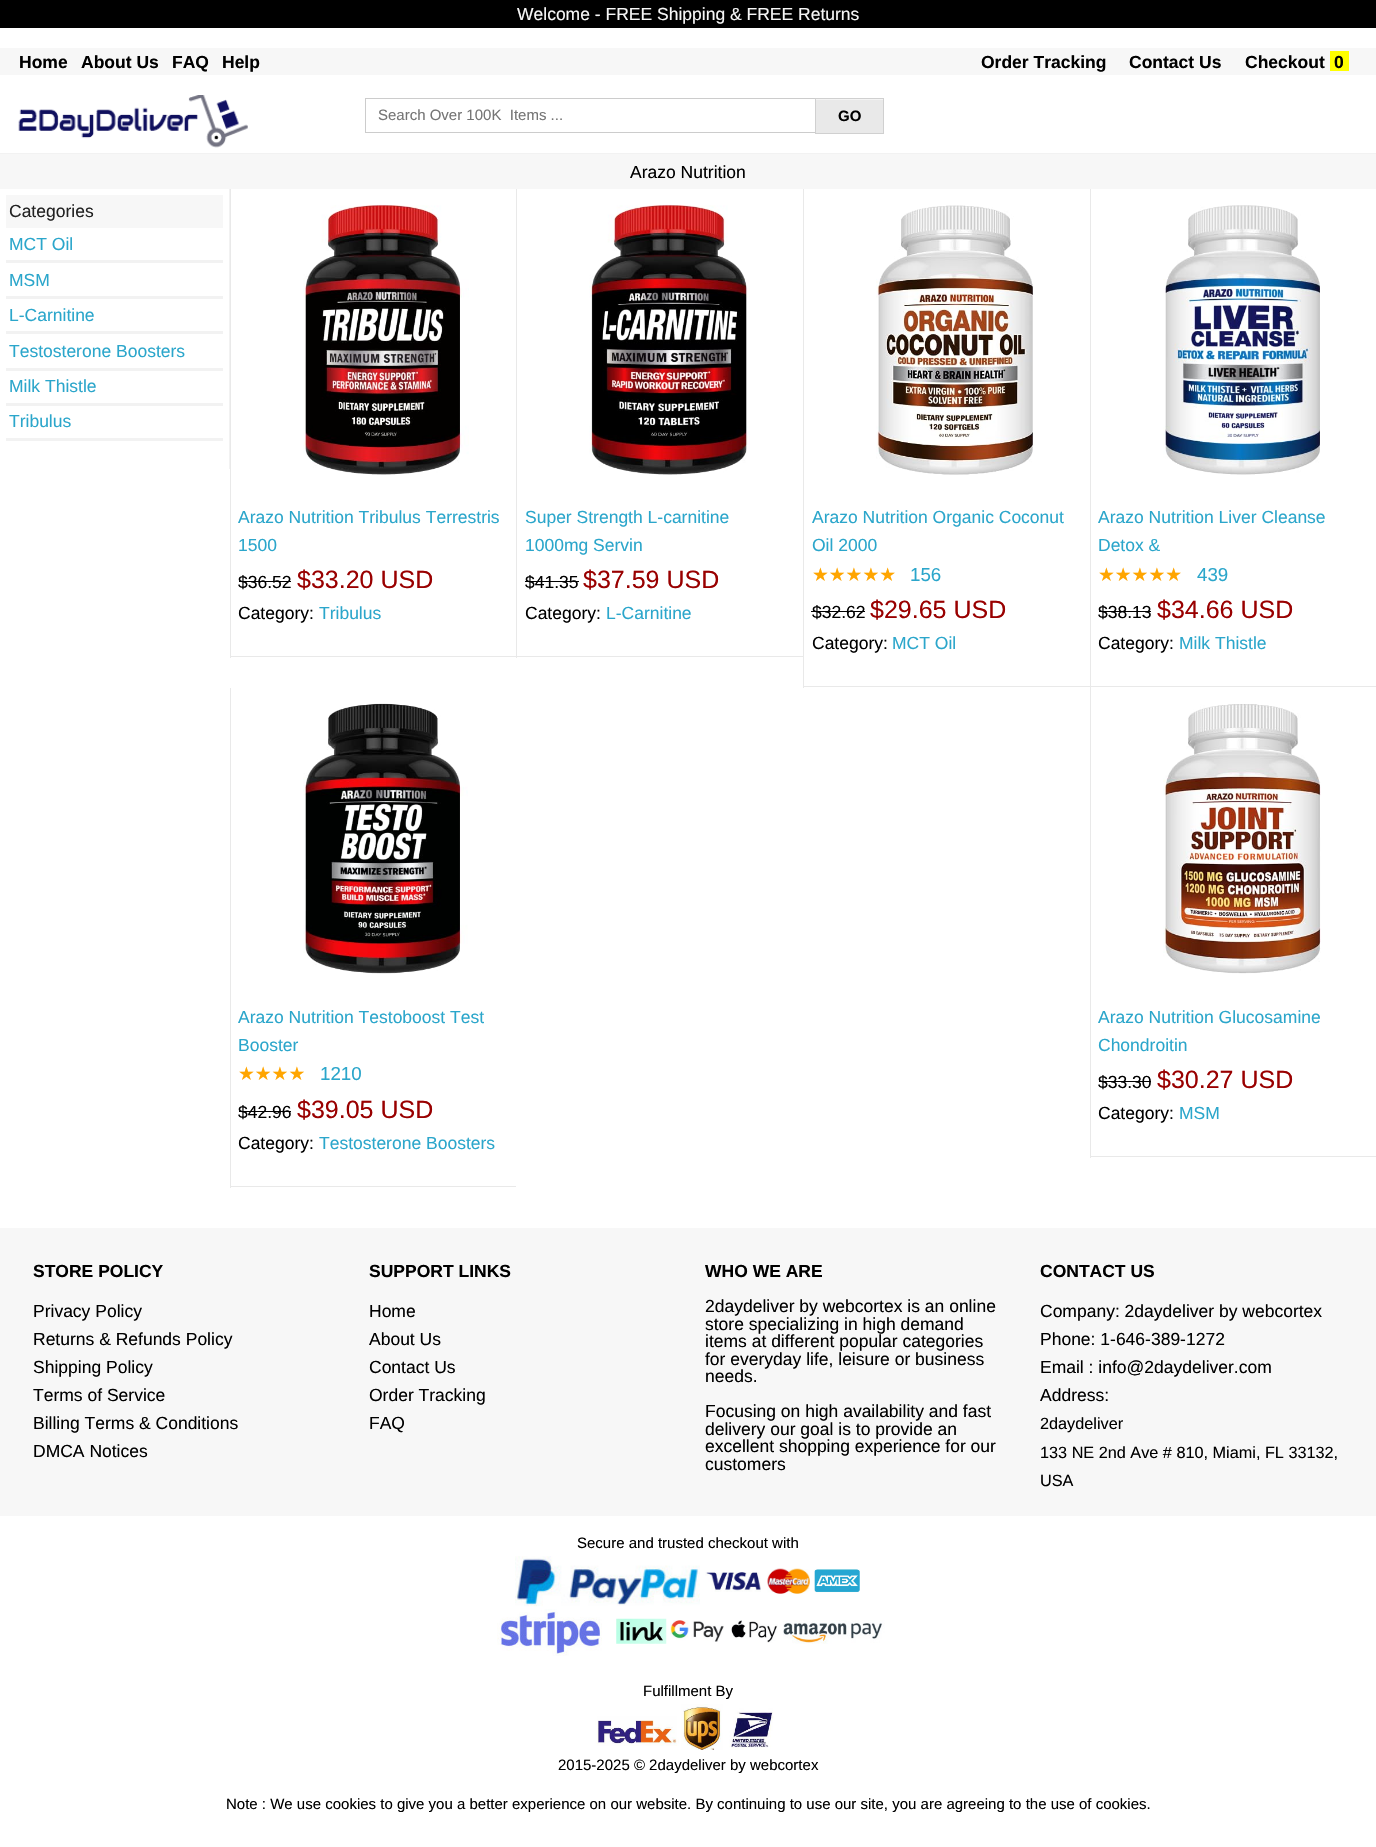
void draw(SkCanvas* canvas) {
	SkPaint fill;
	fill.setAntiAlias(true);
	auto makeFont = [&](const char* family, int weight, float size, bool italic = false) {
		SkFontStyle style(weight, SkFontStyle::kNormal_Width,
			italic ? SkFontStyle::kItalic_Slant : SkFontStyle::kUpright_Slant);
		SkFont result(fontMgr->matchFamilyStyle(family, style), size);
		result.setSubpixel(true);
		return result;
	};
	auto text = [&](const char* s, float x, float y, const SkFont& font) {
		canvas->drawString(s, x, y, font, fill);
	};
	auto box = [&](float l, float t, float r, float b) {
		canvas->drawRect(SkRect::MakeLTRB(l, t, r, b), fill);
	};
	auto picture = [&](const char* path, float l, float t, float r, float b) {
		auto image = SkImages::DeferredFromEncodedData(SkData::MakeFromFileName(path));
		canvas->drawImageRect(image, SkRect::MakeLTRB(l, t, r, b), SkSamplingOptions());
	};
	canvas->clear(0xFFFFFFFF);
	fill.setColor(0xFF000000);
	box(0, 0, 1376, 28);
	fill.setColor(0xFFF7F7F7);
	box(0, 48, 1376, 75);
	fill.setColor(0xFFFFFF00);
	box(1330, 51, 1349, 71);
	picture("image0.png", 18, 95, 248, 148);
	fill.setStyle(SkPaint::kStroke_Style);
	fill.setStrokeWidth(1);
	fill.setColor(0xFFCCCCCC);
	canvas->drawRect(SkRect::MakeLTRB(365.5f, 98.5f, 815.5f, 132.5f), fill);
	fill.setStyle(SkPaint::kFill_Style);
	fill.setColor(0xFFE9E9E9);
	box(816, 100, 883, 133);
	fill.setColor(0xFFF4F4F4);
	box(816, 99, 883, 100);
	fill.setStyle(SkPaint::kStroke_Style);
	fill.setColor(0xFFD0D0D0);
	canvas->drawRect(SkRect::MakeLTRB(815.5f, 98.5f, 883.5f, 133.5f), fill);
	fill.setStyle(SkPaint::kFill_Style);
	fill.setColor(0xFFF7F7F7);
	box(0, 154, 1376, 189);
	fill.setColor(0xFFF2F2F2);
	box(0, 153, 1376, 154);
	box(229, 189, 230, 469);
	fill.setColor(0xFFF7F7F7);
	box(6, 195, 223, 228);
	fill.setColor(0xFFF2F2F2);
	box(6, 260, 223, 263);
	box(6, 296, 223, 299);
	box(6, 331, 223, 334);
	box(6, 368, 223, 371);
	box(6, 403, 223, 406);
	box(6, 438, 223, 441);
	fill.setColor(0xFFE9E9E9);
	box(230, 656, 803, 657);
	box(230, 189, 231, 658);
	picture("image1.png", 303, 204, 469, 475);
	fill.setColor(0xFF000000);
	box(239, 581, 291, 582);
	fill.setColor(0xFFE9E9E9);
	box(516, 189, 517, 658);
	picture("image2.png", 589, 204, 750, 475);
	fill.setColor(0xFF000000);
	box(525, 581, 579, 582);
	fill.setColor(0xFFE9E9E9);
	box(803, 686, 1376, 687);
	box(803, 189, 804, 688);
	picture("image3.png", 876, 205, 1033, 475);
	fill.setColor(0xFF000000);
	box(811, 611, 865, 612);
	fill.setColor(0xFFE9E9E9);
	box(1090, 189, 1091, 688);
	picture("image4.png", 1163, 205, 1320, 475);
	fill.setColor(0xFF000000);
	box(1099, 611, 1151, 612);
	fill.setColor(0xFFE9E9E9);
	box(230, 1186, 516, 1187);
	box(230, 688, 231, 1188);
	picture("image5.png", 303, 703, 468, 974);
	fill.setColor(0xFF000000);
	box(239, 1111, 291, 1112);
	fill.setColor(0xFFE9E9E9);
	box(1090, 1156, 1376, 1157);
	box(1090, 688, 1091, 1158);
	picture("image6.png", 1163, 704, 1321, 974);
	fill.setColor(0xFF000000);
	box(1099, 1081, 1151, 1082);
	fill.setColor(0xFFF7F7F7);
	box(0, 1228, 1376, 1516);
	picture("image7.png", 515, 1556, 700, 1607);
	picture("image8.png", 705, 1572, 761, 1592);
	picture("image9.png", 767, 1568, 810, 1594);
	picture("image10.png", 814, 1569, 860, 1593);
	picture("image11.png", 497, 1609, 602, 1656);
	picture("image12.png", 616, 1618, 667, 1644);
	picture("image13.png", 670, 1620, 724, 1642);
	picture("image14.png", 731, 1620, 778, 1643);
	picture("image15.png", 783, 1620, 885, 1644);
	picture("image16.png", 595, 1704, 774, 1750);
	auto font1 = makeFont("Liberation Sans", 400, 17.5f);
	text("Welcome - FREE Shipping & FREE Returns", 517, 20, font1);
	auto font2 = makeFont("Liberation Sans", 700, 17.5f);
	fill.setColor(0xFF000000);
	text("Home", 19, 68, font2);
	text("About Us", 81, 68, font2);
	text("FAQ", 172, 68, font2);
	text("Help", 222, 68, font2);
	text("Order Tracking", 981, 68, font2);
	text("Contact Us", 1129, 68, font2);
	text("Checkout", 1245, 68, font2);
	text("0", 1334, 68, font2);
	auto font3 = makeFont("Liberation Sans", 400, 15);
	fill.setColor(0xFF757575);
	text("Search Over 100K  Items ...", 378, 120, font3);
	auto font4 = makeFont("Liberation Sans", 700, 15);
	fill.setColor(0xFF000000);
	text("GO", 838, 121, font4);
	text("Arazo Nutrition", 630, 178, font1);
	fill.setColor(0xFF222222);
	text("Categories", 9, 217, font1);
	fill.setColor(0xFF2BA6CB);
	text("MCT Oil", 9, 250, font1);
	text("MSM", 9, 286, font1);
	text("L-Carnitine", 9, 321, font1);
	text("Testosterone Boosters", 9, 357, font1);
	text("Milk Thistle", 9, 392, font1);
	text("Tribulus", 9, 427, font1);
	text("Arazo Nutrition Tribulus Terrestris", 238, 523, font1);
	text("1500", 238, 551, font1);
	fill.setColor(0xFF000000);
	text("$36.52", 238, 588, font1);
	auto font5 = makeFont("Liberation Sans", 400, 25);
	fill.setColor(0xFF990000);
	text("$33.20 USD", 297, 588, font5);
	fill.setColor(0xFF000000);
	text("Category:", 238, 619, font1);
	fill.setColor(0xFF2BA6CB);
	text("Tribulus", 319, 619, font1);
	text("Super Strength L-carnitine", 525, 523, font1);
	text("1000mg Servin", 525, 551, font1);
	fill.setColor(0xFF000000);
	text("$41.35", 525, 588, font1);
	fill.setColor(0xFF990000);
	text("$37.59 USD", 583, 588, font5);
	fill.setColor(0xFF000000);
	text("Category:", 525, 619, font1);
	fill.setColor(0xFF2BA6CB);
	text("L-Carnitine", 606, 619, font1);
	text("Arazo Nutrition Organic Coconut", 812, 523, font1);
	text("Oil 2000", 812, 551, font1);
	auto font6 = makeFont("DejaVu Sans", 400, 18.75f);
	fill.setColor(0xFFFFA500);
	text("★★★★★", 812, 581, font6);
	auto font7 = makeFont("Liberation Sans", 400, 18.75f);
	fill.setColor(0xFF2BA6CB);
	text("156", 910, 581, font7);
	fill.setColor(0xFF000000);
	text("$32.62", 812, 618, font1);
	fill.setColor(0xFF990000);
	text("$29.65 USD", 870, 618, font5);
	fill.setColor(0xFF000000);
	text("Category:", 812, 649, font1);
	fill.setColor(0xFF2BA6CB);
	text("MCT Oil", 892, 649, font1);
	text("Arazo Nutrition Liver Cleanse", 1098, 523, font1);
	text("Detox &", 1098, 551, font1);
	fill.setColor(0xFFFFA500);
	text("★★★★★", 1098, 581, font6);
	fill.setColor(0xFF2BA6CB);
	text("439", 1197, 581, font7);
	fill.setColor(0xFF000000);
	text("$38.13", 1098, 618, font1);
	fill.setColor(0xFF990000);
	text("$34.66 USD", 1157, 618, font5);
	fill.setColor(0xFF000000);
	text("Category:", 1098, 649, font1);
	fill.setColor(0xFF2BA6CB);
	text("Milk Thistle", 1179, 649, font1);
	text("Arazo Nutrition Testoboost Test", 238, 1023, font1);
	text("Booster", 238, 1051, font1);
	fill.setColor(0xFFFFA500);
	text("★★★★", 238, 1080, font6);
	fill.setColor(0xFF2BA6CB);
	text("1210", 320, 1080, font7);
	fill.setColor(0xFF000000);
	text("$42.96", 238, 1118, font1);
	fill.setColor(0xFF990000);
	text("$39.05 USD", 297, 1118, font5);
	fill.setColor(0xFF000000);
	text("Category:", 238, 1149, font1);
	fill.setColor(0xFF2BA6CB);
	text("Testosterone Boosters", 319, 1149, font1);
	text("Arazo Nutrition Glucosamine", 1098, 1023, font1);
	text("Chondroitin", 1098, 1051, font1);
	fill.setColor(0xFF000000);
	text("$33.30", 1098, 1088, font1);
	fill.setColor(0xFF990000);
	text("$30.27 USD", 1157, 1088, font5);
	fill.setColor(0xFF000000);
	text("Category:", 1098, 1119, font1);
	fill.setColor(0xFF2BA6CB);
	text("MSM", 1179, 1119, font1);
	fill.setColor(0xFF000000);
	text("STORE POLICY", 33, 1277, font2);
	text("Privacy Policy", 33, 1317, font1);
	text("Returns & Refunds Policy", 33, 1345, font1);
	text("Shipping Policy", 33, 1373, font1);
	text("Terms of Service", 33, 1401, font1);
	text("Billing Terms & Conditions", 33, 1429, font1);
	text("DMCA Notices", 33, 1457, font1);
	text("SUPPORT LINKS", 369, 1277, font2);
	text("Home", 369, 1317, font1);
	text("About Us", 369, 1345, font1);
	text("Contact Us", 369, 1373, font1);
	text("Order Tracking", 369, 1401, font1);
	text("FAQ", 369, 1429, font1);
	text("WHO WE ARE", 705, 1277, font2);
	text("2daydeliver by webcortex is an online", 705, 1312, font1);
	text("store specializing in high demand", 705, 1330, font1);
	text("items at different popular categories", 705, 1347, font1);
	text("for everyday life, leisure or business", 705, 1365, font1);
	text("needs.", 705, 1382, font1);
	text("Focusing on high availability and fast", 705, 1417, font1);
	text("delivery our goal is to provide an", 705, 1435, font1);
	text("excellent shopping experience for our", 705, 1452, font1);
	text("customers", 705, 1470, font1);
	text("CONTACT US", 1040, 1277, font2);
	text("Company: 2daydeliver by webcortex", 1040, 1317, font1);
	text("Phone: 1-646-389-1272", 1040, 1345, font1);
	text("Email : info@2daydeliver.com", 1040, 1373, font1);
	text("Address:", 1040, 1401, font1);
	auto font8 = makeFont("Liberation Sans", 400, 16.25f);
	text("2daydeliver", 1040, 1429, font8);
	text("133 NE 2nd Ave # 810, Miami, FL 33132,", 1040, 1458, font8);
	text("USA", 1040, 1486, font8);
	text("Secure and trusted checkout with", 577, 1548, font3);
	text("Fulfillment By", 643, 1696, font3);
	text("2015-2025 © 2daydeliver by webcortex", 558, 1770, font3);
	text("Note : We use cookies to give you a better experience on our website. By continuing to use our site, you are agreeing to the use of cookies.", 226, 1809, font3);
}
